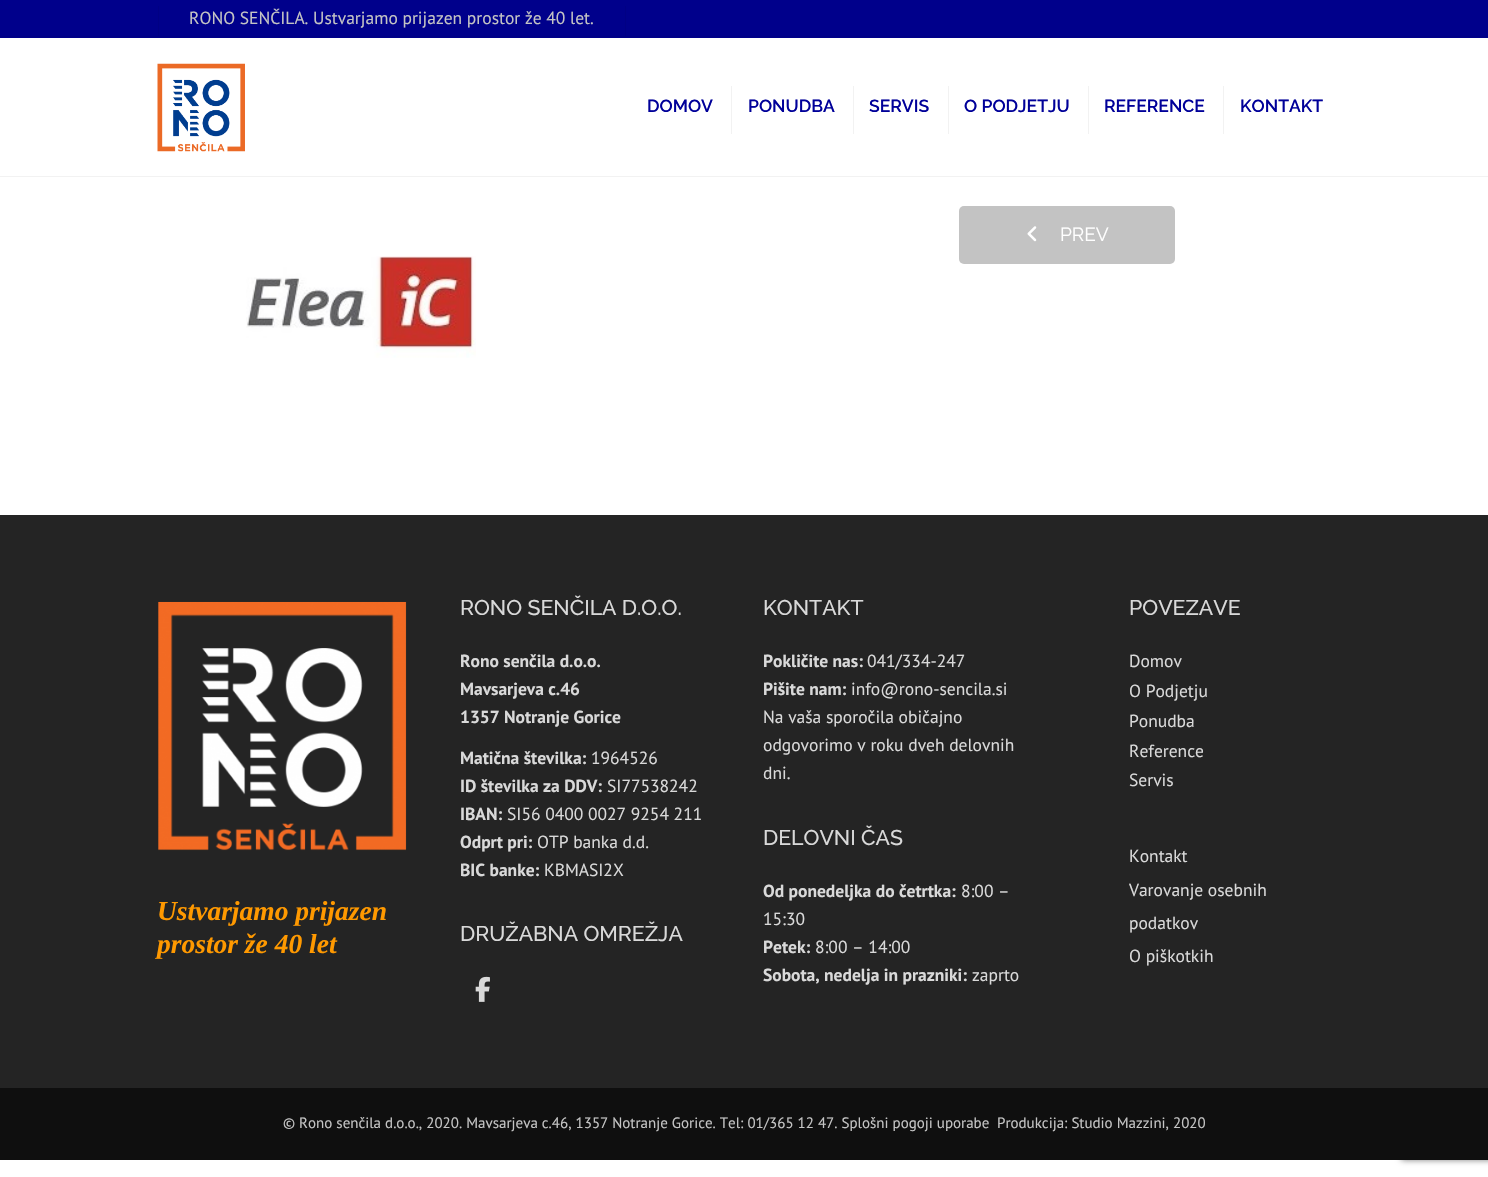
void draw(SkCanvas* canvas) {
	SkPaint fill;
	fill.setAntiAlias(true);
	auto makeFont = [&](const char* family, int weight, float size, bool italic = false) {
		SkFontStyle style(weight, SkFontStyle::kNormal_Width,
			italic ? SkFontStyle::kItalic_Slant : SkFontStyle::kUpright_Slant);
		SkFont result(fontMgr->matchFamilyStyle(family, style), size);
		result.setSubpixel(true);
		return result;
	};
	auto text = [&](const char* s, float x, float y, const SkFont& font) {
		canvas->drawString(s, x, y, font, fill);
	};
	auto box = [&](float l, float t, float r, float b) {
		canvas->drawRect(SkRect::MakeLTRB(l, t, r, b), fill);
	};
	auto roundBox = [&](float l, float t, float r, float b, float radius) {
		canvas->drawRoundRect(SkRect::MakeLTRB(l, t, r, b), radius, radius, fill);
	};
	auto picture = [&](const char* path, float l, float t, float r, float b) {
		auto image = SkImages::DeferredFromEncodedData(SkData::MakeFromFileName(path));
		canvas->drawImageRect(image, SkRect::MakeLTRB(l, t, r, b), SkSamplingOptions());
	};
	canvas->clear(0xFFFFFFFF);
	fill.setColor(0xFF00008B);
	box(0, 0, 1488, 38);
	fill.setColor(0xFF000084);
	box(0, 36, 1488, 37);
	box(625, 6, 626, 36);
	box(158, 6, 159, 36);
	fill.setColor(0xFFF2F2F2);
	box(0, 176, 1488, 177);
	picture("image0.png", 157, 63, 245, 152);
	box(731, 86, 732, 134);
	box(853, 86, 854, 134);
	box(948, 86, 949, 134);
	box(1088, 86, 1089, 134);
	box(1223, 86, 1224, 134);
	fill.setColor(0xFFC3C3C3);
	roundBox(959, 206, 1175, 264, 5);
	picture("image1.png", 1027, 226, 1037, 242);
	picture("image2.png", 246, 256, 476, 358);
	fill.setColor(0xFF808080);
	fill.setMaskFilter(SkMaskFilter::MakeBlur(kNormal_SkBlurStyle, 3));
	canvas->drawRoundRect(SkRect::MakeLTRB(1401, 1085, 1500, 1160), 2.5f, 2.5f, fill);
	fill.setMaskFilter(nullptr);
	fill.setColor(0xFF242424);
	box(0, 515, 1488, 1088);
	picture("image3.png", 158, 601, 407, 851);
	picture("image4.png", 475, 976, 490, 1002);
	fill.setColor(0xFF0F0F0F);
	box(0, 1088, 1488, 1160);
	auto font1 = makeFont("PT Sans", 400, 17.5f);
	fill.setColor(0xFFC4C4C4);
	text("RONO SENČILA. Ustvarjamo prijazen prostor že 40 let.", 189, 24, font1);
	auto font2 = makeFont("Raleway", 600, 17.5f);
	fill.setColor(0xFF000099);
	text("DOMOV", 647, 112, font2);
	text("PONUDBA", 748, 112, font2);
	text("SERVIS", 869, 112, font2);
	text("O PODJETJU", 964, 112, font2);
	text("REFERENCE", 1104, 112, font2);
	text("KONTAKT", 1240, 112, font2);
	auto font3 = makeFont("Raleway", 400, 19);
	fill.setColor(0xFFFFFFFF);
	text("PREV", 1060, 241, font3);
	auto font4 = makeFont("Liberation Serif", 700, 27.5f, true);
	fill.setColor(0xFFFF9900);
	text("Ustvarjamo prijazen", 157, 920, font4);
	text("prostor že 40 let", 157, 953, font4);
	auto font5 = makeFont("Raleway", 500, 21.25f);
	fill.setColor(0xFFD9D9D9);
	text("RONO SENČILA D.O.O.", 460, 615, font5);
	auto font6 = makeFont("PT Sans", 700, 17.5f);
	text("Rono senčila d.o.o.", 460, 667, font6);
	text("Mavsarjeva c.46", 460, 695, font6);
	text("1357 Notranje Gorice", 460, 723, font6);
	text("Matična številka:", 460, 764, font6);
	text("1964526", 591, 764, font1);
	text("ID številka za DDV:", 460, 792, font6);
	text("SI77538242", 607, 792, font1);
	text("IBAN:", 460, 820, font6);
	text("SI56 0400 0027 9254 211", 507, 820, font1);
	text("Odprt pri:", 460, 848, font6);
	text("OTP banka d.d.", 537, 848, font1);
	text("BIC banke:", 460, 876, font6);
	text("KBMASI2X", 544, 876, font1);
	text("DRUŽABNA OMREŽJA", 460, 941, font5);
	text("KONTAKT", 763, 615, font5);
	text("Pokličite nas:", 763, 667, font6);
	text("041/334-247", 867, 667, font1);
	text("Pišite nam:", 763, 695, font6);
	text("info@rono-sencila.si", 851, 695, font1);
	text("Na vaša sporočila običajno", 763, 723, font1);
	text("odgovorimo v roku dveh delovnih", 763, 751, font1);
	text("dni.", 763, 779, font1);
	text("DELOVNI ČAS", 763, 845, font5);
	text("Od ponedeljka do četrtka:", 763, 897, font6);
	text("8:00 –", 961, 897, font1);
	text("15:30", 763, 925, font1);
	text("Petek:", 763, 953, font6);
	text("8:00 – 14:00", 815, 953, font1);
	text("Sobota, nedelja in prazniki:", 763, 981, font6);
	text("zaprto", 972, 981, font1);
	text("POVEZAVE", 1129, 615, font5);
	text("Domov", 1129, 667, font1);
	text("O Podjetju", 1129, 697, font1);
	text("Ponudba", 1129, 727, font1);
	text("Reference", 1129, 757, font1);
	text("Servis", 1129, 786, font1);
	text("Kontakt", 1129, 862, font1);
	text("Varovanje osebnih", 1129, 896, font1);
	text("podatkov", 1129, 929, font1);
	text("O piškotkih", 1129, 962, font1);
	auto font7 = makeFont("PT Sans", 400, 15);
	fill.setColor(0xFFC4C4C4);
	text("© Rono senčila d.o.o., 2020. Mavsarjeva c.46, 1357 Notranje Gorice. Tel: 01/365 12 47. Splošni pogoji uporabe", 283, 1128, font7);
	text("Produkcija: Studio Mazzini, 2020", 997, 1128, font7);
}
